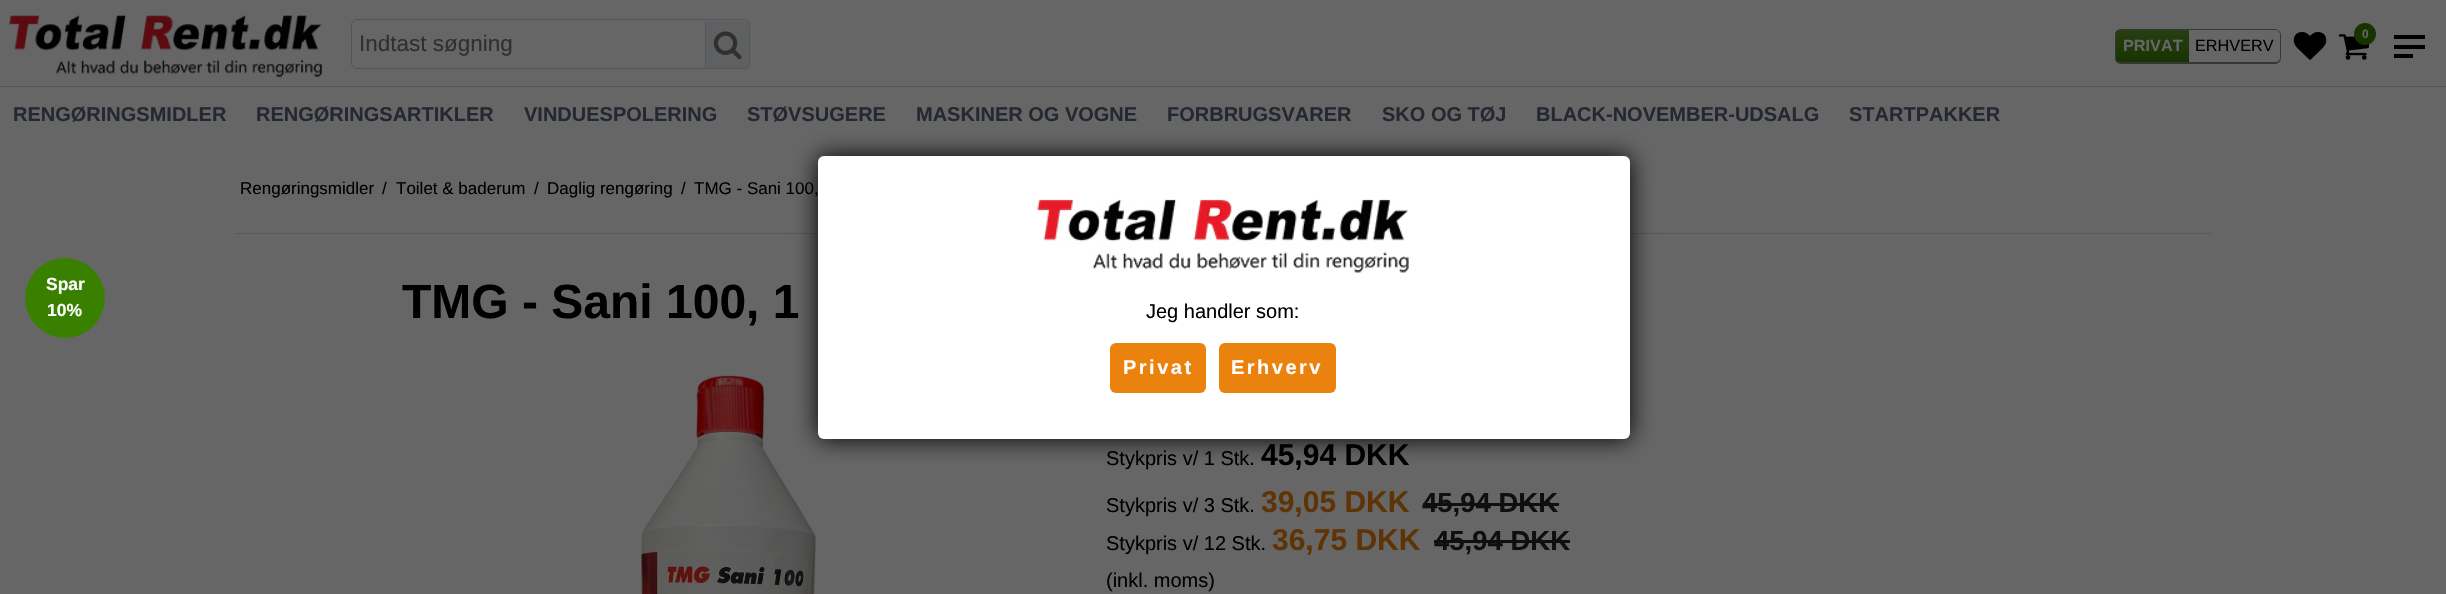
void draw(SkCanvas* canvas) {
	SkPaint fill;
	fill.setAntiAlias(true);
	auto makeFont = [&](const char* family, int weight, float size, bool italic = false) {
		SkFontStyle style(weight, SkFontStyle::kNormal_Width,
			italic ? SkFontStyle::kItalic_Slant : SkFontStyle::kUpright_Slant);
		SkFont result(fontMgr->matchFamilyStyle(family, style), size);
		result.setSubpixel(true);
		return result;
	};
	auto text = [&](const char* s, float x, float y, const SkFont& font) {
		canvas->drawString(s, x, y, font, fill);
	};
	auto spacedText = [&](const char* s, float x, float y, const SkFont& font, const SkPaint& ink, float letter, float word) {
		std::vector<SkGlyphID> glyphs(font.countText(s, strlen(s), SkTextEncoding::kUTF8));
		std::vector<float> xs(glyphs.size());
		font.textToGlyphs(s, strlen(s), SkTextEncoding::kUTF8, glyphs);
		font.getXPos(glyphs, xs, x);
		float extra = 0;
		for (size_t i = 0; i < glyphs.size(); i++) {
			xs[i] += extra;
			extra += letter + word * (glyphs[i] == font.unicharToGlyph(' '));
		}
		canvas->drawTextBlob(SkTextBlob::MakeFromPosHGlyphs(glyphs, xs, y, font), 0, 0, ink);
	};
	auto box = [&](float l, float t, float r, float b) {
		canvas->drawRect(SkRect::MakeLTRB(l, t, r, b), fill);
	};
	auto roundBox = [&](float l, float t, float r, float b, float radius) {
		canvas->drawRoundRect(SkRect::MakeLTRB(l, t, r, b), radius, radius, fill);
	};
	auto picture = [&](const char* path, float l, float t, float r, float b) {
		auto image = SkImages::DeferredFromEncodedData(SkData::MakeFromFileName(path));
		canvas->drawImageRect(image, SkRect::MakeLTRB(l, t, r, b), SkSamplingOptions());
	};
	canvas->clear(0xFF666666);
	picture("image0.png", 9, 15, 323, 78);
	fill.setStyle(SkPaint::kStroke_Style);
	fill.setStrokeWidth(1);
	fill.setColor(0xFF535353);
	canvas->drawRoundRect(SkRect::MakeLTRB(351.5f, 19.5f, 710.5f, 68.5f), 5.5f, 5.5f, fill);
	fill.setStyle(SkPaint::kFill_Style);
	fill.setColor(0xFF5F6061);
	canvas->drawPath(SkPathBuilder().moveTo(705, 19).lineTo(745, 19).cubicTo(748, 19, 750, 21, 750, 24).lineTo(750, 64).cubicTo(750, 67, 748, 69, 745, 69).lineTo(705, 69).close().detach(), fill);
	fill.setColor(0xFF666666);
	canvas->drawPath(SkPathBuilder().moveTo(706, 21).lineTo(745, 21).cubicTo(747, 21, 749, 23, 749, 25).lineTo(749, 24).cubicTo(749, 22, 747, 20, 745, 20).lineTo(706, 20).close().detach(), fill);
	fill.setStyle(SkPaint::kStroke_Style);
	fill.setColor(0xFF56575A);
	canvas->drawPath(SkPathBuilder().moveTo(705.5f, 19.5f).lineTo(745, 19.5f).cubicTo(747.5f, 19.5f, 749.5f, 21.5f, 749.5f, 24).lineTo(749.5f, 64).cubicTo(749.5f, 66.5f, 747.5f, 68.5f, 745, 68.5f).lineTo(705.5f, 68.5f).close().detach(), fill);
	picture("image1.png", 713, 31, 742, 60);
	canvas->save();
	canvas->clipPath(SkPathBuilder().moveTo(2121, 29).lineTo(2189, 29).lineTo(2189, 64).lineTo(2121, 64).cubicTo(2117.5f, 64, 2115, 61.5f, 2115, 58).lineTo(2115, 35).cubicTo(2115, 31.5f, 2117.5f, 29, 2121, 29).close().detach(), true);
	fill.setStyle(SkPaint::kFill_Style);
	{
		const SkColor colors[] = {0xFF273E12, 0xFF173300};
		const float stops[] = {0, 1};
		const SkPoint ends[] = {{2153, 30}, {2153, 63}};
		fill.setShader(SkGradientShader::MakeLinear(ends, colors, stops, 2, SkTileMode::kClamp));
		fill.setAlpha(255);
	}
	box(2115, 30, 2189, 63);
	canvas->restore();
	fill.setShader(nullptr);
	fill.setColor(0xFF363636);
	canvas->drawPath(SkPathBuilder(SkPathFillType::kEvenOdd).moveTo(2121, 29).lineTo(2189, 29).lineTo(2189, 64).lineTo(2121, 64).cubicTo(2118, 64, 2115, 61, 2115, 58).lineTo(2115, 35).cubicTo(2115, 32, 2118, 29, 2121, 29).close().moveTo(2121, 30).lineTo(2189, 30).lineTo(2189, 62).lineTo(2121, 62).cubicTo(2118, 62, 2116, 60, 2116, 58).lineTo(2116, 35).cubicTo(2116, 32, 2118, 30, 2121, 30).close().detach(), fill);
	canvas->drawPath(SkPathBuilder(SkPathFillType::kEvenOdd).moveTo(2189, 29).lineTo(2275, 29).cubicTo(2278, 29, 2281, 32, 2281, 35).lineTo(2281, 58).cubicTo(2281, 61, 2278, 64, 2275, 64).lineTo(2189, 64).close().moveTo(2189, 30).lineTo(2275, 30).cubicTo(2278, 30, 2280, 32, 2280, 35).lineTo(2280, 58).cubicTo(2280, 60, 2278, 62, 2275, 62).lineTo(2189, 62).close().detach(), fill);
	picture("image2.png", 2293, 32, 2327, 60);
	picture("image3.png", 2338, 34, 2369, 60);
	fill.setColor(0xFF173300);
	canvas->drawCircle(2365, 34, 11, fill);
	fill.setColor(0xFF000000);
	box(2394, 35, 2425, 39);
	box(2394, 45, 2425, 49);
	box(2394, 54, 2413, 58);
	fill.setColor(0xFF565656);
	box(0, 86, 2446, 87);
	fill.setColor(0xFF3A8000);
	canvas->drawCircle(65, 298, 40, fill);
	fill.setColor(0xFF585858);
	box(236, 233, 2211, 234);
	picture("image4.png", 641, 375, 817, 594);
	fill.setColor(0xFF0F0F0F);
	box(1423, 503, 1559, 506);
	box(1434, 540, 1570, 543);
	fill.setColor(0xFF000000);
	fill.setMaskFilter(SkMaskFilter::MakeBlur(kNormal_SkBlurStyle, 12.5f));
	canvas->drawRoundRect(SkRect::MakeLTRB(818, 156, 1630, 439), 6, 6, fill);
	fill.setMaskFilter(nullptr);
	fill.setColor(0xFFFFFFFF);
	roundBox(818, 156, 1630, 439, 6);
	picture("image5.png", 1035, 199, 1409, 273);
	fill.setColor(0xFFEB820E);
	roundBox(1110, 343, 1206, 393, 6);
	roundBox(1219, 343, 1336, 393, 6);
	auto font1 = makeFont("Liberation Sans", 400, 22.5f);
	fill.setColor(0xFF2F2F2F);
	text("Indtast søgning", 359, 51, font1);
	auto font2 = makeFont("Liberation Sans", 700, 16.25f);
	fill.setColor(0xFF666666);
	text("PRIVAT", 2123, 51, font2);
	auto font3 = makeFont("Liberation Sans", 400, 16.25f);
	fill.setColor(0xFF000000);
	text("ERHVERV", 2195, 51, font3);
	auto font4 = makeFont("Liberation Sans", 700, 12);
	fill.setColor(0xFF666666);
	text("0", 2362, 38, font4);
	auto font5 = makeFont("Liberation Sans", 700, 20);
	fill.setColor(0xFF242830);
	text("RENGØRINGSMIDLER", 13, 121, font5);
	text("RENGØRINGSARTIKLER", 256, 121, font5);
	text("VINDUESPOLERING", 524, 121, font5);
	text("STØVSUGERE", 747, 121, font5);
	text("MASKINER OG VOGNE", 916, 121, font5);
	text("FORBRUGSVARER", 1167, 121, font5);
	text("SKO OG TØJ", 1382, 121, font5);
	text("BLACK-NOVEMBER-UDSALG", 1536, 121, font5);
	text("STARTPAKKER", 1849, 121, font5);
	auto font6 = makeFont("Liberation Sans", 700, 17.5f);
	fill.setColor(0xFFFFFFFF);
	text("Spar", 46, 290, font6);
	text("10%", 47, 316, font6);
	auto font7 = makeFont("Liberation Sans", 400, 17);
	fill.setColor(0xFF000000);
	text("Rengøringsmidler", 240, 194, font7);
	text("/", 382, 194, font7);
	text("Toilet & baderum", 396, 194, font7);
	text("/", 534, 194, font7);
	text("Daglig rengøring", 547, 194, font7);
	text("/", 681, 194, font7);
	text("TMG - Sani 100,", 694, 194, font7);
	auto font8 = makeFont("Liberation Sans", 700, 48);
	text("TMG - Sani 100, 1", 402, 318, font8);
	auto font9 = makeFont("Liberation Sans", 400, 20);
	text("Stykpris v/ 1 Stk.", 1106, 465, font9);
	auto font10 = makeFont("Liberation Sans", 700, 30);
	text("45,94 DKK", 1261, 465, font10);
	text("Stykpris v/ 3 Stk.", 1106, 512, font9);
	fill.setColor(0xFF5E3406);
	text("39,05 DKK", 1261, 512, font10);
	auto font11 = makeFont("Liberation Sans", 700, 27.5f);
	fill.setColor(0xFF0F0F0F);
	text("45,94 DKK", 1422, 512, font11);
	fill.setColor(0xFF000000);
	text("Stykpris v/ 12 Stk.", 1106, 550, font9);
	fill.setColor(0xFF5E3406);
	text("36,75 DKK", 1272, 550, font10);
	fill.setColor(0xFF0F0F0F);
	text("45,94 DKK", 1434, 550, font11);
	fill.setColor(0xFF000000);
	text("(inkl. moms)", 1106, 587, font9);
	text("Jeg handler som:", 1146, 318, font9);
	fill.setColor(0xFFFFFFFF);
	spacedText("Privat", 1123, 374, font5, fill, 2.5f, 0);
	spacedText("Erhverv", 1231, 374, font5, fill, 2.5f, 0);
}
